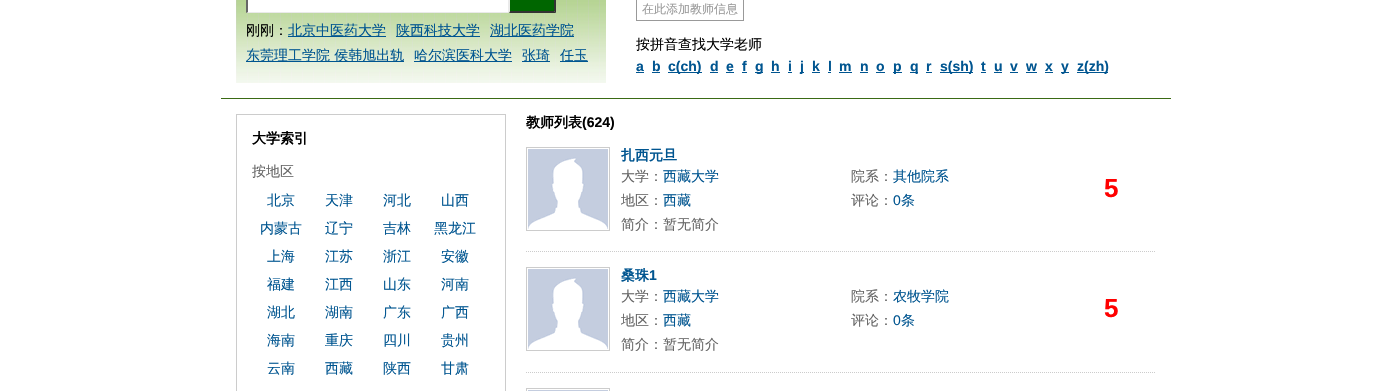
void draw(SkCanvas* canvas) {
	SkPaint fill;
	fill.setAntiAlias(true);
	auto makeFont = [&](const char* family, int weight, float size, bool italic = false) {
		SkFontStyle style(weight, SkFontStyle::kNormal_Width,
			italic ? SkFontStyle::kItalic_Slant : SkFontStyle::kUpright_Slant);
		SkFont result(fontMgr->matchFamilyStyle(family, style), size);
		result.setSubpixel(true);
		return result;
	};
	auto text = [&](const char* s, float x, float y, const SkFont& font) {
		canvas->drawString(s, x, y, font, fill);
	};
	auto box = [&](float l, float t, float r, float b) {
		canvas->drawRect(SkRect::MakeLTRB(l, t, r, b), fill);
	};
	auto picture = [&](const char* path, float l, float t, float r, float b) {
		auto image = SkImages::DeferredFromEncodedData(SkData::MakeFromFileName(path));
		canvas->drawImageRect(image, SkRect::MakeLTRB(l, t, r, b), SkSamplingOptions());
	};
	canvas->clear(0xFFFFFFFF);
	fill.setColor(0xFF3A6A14);
	box(221, 98, 1171, 99);
	picture("image0.png", 236, 0, 606, 83);
	fill.setColor(0xFFFFFFFF);
	box(248, 0, 508, 12);
	fill.setColor(0xFFEAEAEA);
	canvas->drawPath(SkPathBuilder().moveTo(509, -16).lineTo(509, 13).lineTo(508, 12).lineTo(508, -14).close().detach(), fill);
	canvas->drawPath(SkPathBuilder().moveTo(509, 13).lineTo(246, 13).lineTo(248, 12).lineTo(508, 12).close().detach(), fill);
	fill.setColor(0xFF666666);
	canvas->drawPath(SkPathBuilder().moveTo(246, 13).lineTo(246, -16).lineTo(248, -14).lineTo(248, 12).close().detach(), fill);
	fill.setColor(0xFF006600);
	box(510, 0, 554, 11);
	fill.setColor(0xFF333333);
	canvas->drawPath(SkPathBuilder().moveTo(556, -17).lineTo(556, 13).lineTo(554, 11).lineTo(554, -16).close().detach(), fill);
	canvas->drawPath(SkPathBuilder().moveTo(556, 13).lineTo(509, 13).lineTo(510, 11).lineTo(554, 11).close().detach(), fill);
	fill.setColor(0xFFEAEAEA);
	canvas->drawPath(SkPathBuilder().moveTo(509, 13).lineTo(509, -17).lineTo(510, -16).lineTo(510, 11).close().detach(), fill);
	fill.setColor(0xFF005590);
	box(288, 36, 386, 37);
	box(396, 36, 480, 37);
	box(490, 36, 574, 37);
	box(246, 61, 404, 62);
	box(414, 61, 512, 62);
	box(522, 61, 550, 62);
	box(560, 61, 588, 62);
	fill.setStyle(SkPaint::kStroke_Style);
	fill.setStrokeWidth(1);
	fill.setColor(0xFF999999);
	canvas->drawRect(SkRect::MakeLTRB(636.5f, -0.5f, 743.5f, 20.5f), fill);
	fill.setStyle(SkPaint::kFill_Style);
	fill.setColor(0xFF005590);
	box(636, 72, 644, 73);
	box(652, 72, 660, 73);
	box(668, 72, 702, 73);
	box(710, 72, 718, 73);
	box(726, 72, 734, 73);
	box(742, 72, 747, 73);
	box(755, 72, 763, 73);
	box(771, 72, 780, 73);
	box(788, 72, 792, 73);
	box(800, 72, 804, 73);
	box(812, 72, 820, 73);
	box(828, 72, 831, 73);
	box(839, 72, 852, 73);
	box(860, 72, 868, 73);
	box(876, 72, 885, 73);
	box(893, 72, 902, 73);
	box(910, 72, 918, 73);
	box(926, 72, 932, 73);
	box(940, 72, 973, 73);
	box(981, 72, 986, 73);
	box(994, 72, 1002, 73);
	box(1010, 72, 1018, 73);
	box(1026, 72, 1037, 73);
	box(1045, 72, 1053, 73);
	box(1061, 72, 1069, 73);
	box(1077, 72, 1108, 73);
	fill.setStyle(SkPaint::kStroke_Style);
	fill.setColor(0xFFCCCCCC);
	canvas->drawRect(SkRect::MakeLTRB(236.5f, 114.5f, 505.5f, 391.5f), fill);
	fill.setPathEffect(SkDashPathEffect::Make({{1, 1}}, 0));
	canvas->drawPath(SkPathBuilder().moveTo(526, 251.5f).lineTo(1156, 251.5f).detach(), fill);
	fill.setPathEffect(nullptr);
	canvas->drawRect(SkRect::MakeLTRB(526.5f, 147.5f, 609.5f, 230.5f), fill);
	picture("image1.png", 528, 149, 608, 229);
	fill.setPathEffect(SkDashPathEffect::Make({{1, 1}}, 0));
	canvas->drawPath(SkPathBuilder().moveTo(526, 372.5f).lineTo(1156, 372.5f).detach(), fill);
	fill.setPathEffect(nullptr);
	canvas->drawRect(SkRect::MakeLTRB(526.5f, 267.5f, 609.5f, 350.5f), fill);
	picture("image1.png", 528, 269, 608, 349);
	canvas->drawRect(SkRect::MakeLTRB(526.5f, 388.5f, 609.5f, 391.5f), fill);
	fill.setStyle(SkPaint::kFill_Style);
	fill.setColor(0xFFC4CDDF);
	box(528, 390, 608, 391);
	auto font1 = makeFont("WenQuanYi Zen Hei", 500, 14);
	fill.setColor(0xFF000000);
	text("刚刚：", 246, 35, font1);
	fill.setColor(0xFF005590);
	text("北京中医药大学", 288, 35, font1);
	text("陕西科技大学", 396, 35, font1);
	text("湖北医药学院", 490, 35, font1);
	text("东莞理工学院 侯韩旭出轨", 246, 60, font1);
	text("哈尔滨医科大学", 414, 60, font1);
	text("张琦", 522, 60, font1);
	text("任玉", 560, 60, font1);
	auto font2 = makeFont("WenQuanYi Zen Hei", 500, 12);
	fill.setColor(0xFF999999);
	text("在此添加教师信息", 642, 13, font2);
	fill.setColor(0xFF000000);
	text("按拼音查找大学老师", 636, 49, font1);
	auto font3 = makeFont("Liberation Sans", 700, 14);
	fill.setColor(0xFF005590);
	text("a", 636, 71, font3);
	text("b", 652, 71, font3);
	text("c(ch)", 668, 71, font3);
	text("d", 710, 71, font3);
	text("e", 726, 71, font3);
	text("f", 742, 71, font3);
	text("g", 755, 71, font3);
	text("h", 771, 71, font3);
	text("i", 788, 71, font3);
	text("j", 800, 71, font3);
	text("k", 812, 71, font3);
	text("l", 828, 71, font3);
	text("m", 839, 71, font3);
	text("n", 860, 71, font3);
	text("o", 876, 71, font3);
	text("p", 893, 71, font3);
	text("q", 910, 71, font3);
	text("r", 926, 71, font3);
	text("s(sh)", 940, 71, font3);
	text("t", 981, 71, font3);
	text("u", 994, 71, font3);
	text("v", 1010, 71, font3);
	text("w", 1026, 71, font3);
	text("x", 1045, 71, font3);
	text("y", 1061, 71, font3);
	text("z(zh)", 1077, 71, font3);
	auto font4 = makeFont("WenQuanYi Zen Hei", 700, 14);
	fill.setColor(0xFF000000);
	text("大学索引", 252, 143, font4);
	fill.setColor(0xFF666666);
	text("按地区", 252, 176, font1);
	fill.setColor(0xFF005590);
	text("北京", 267, 205, font1);
	text("天津", 325, 205, font1);
	text("河北", 383, 205, font1);
	text("山西", 441, 205, font1);
	text("内蒙古", 260, 233, font1);
	text("辽宁", 325, 233, font1);
	text("吉林", 383, 233, font1);
	text("黑龙江", 434, 233, font1);
	text("上海", 267, 261, font1);
	text("江苏", 325, 261, font1);
	text("浙江", 383, 261, font1);
	text("安徽", 441, 261, font1);
	text("福建", 267, 289, font1);
	text("江西", 325, 289, font1);
	text("山东", 383, 289, font1);
	text("河南", 441, 289, font1);
	text("湖北", 267, 317, font1);
	text("湖南", 325, 317, font1);
	text("广东", 383, 317, font1);
	text("广西", 441, 317, font1);
	text("海南", 267, 345, font1);
	text("重庆", 325, 345, font1);
	text("四川", 383, 345, font1);
	text("贵州", 441, 345, font1);
	text("云南", 267, 373, font1);
	text("西藏", 325, 373, font1);
	text("陕西", 383, 373, font1);
	text("甘肃", 441, 373, font1);
	fill.setColor(0xFF000000);
	text("教师列表", 526, 127, font4);
	text("(624)", 582, 127, font3);
	fill.setColor(0xFF005590);
	text("扎西元旦", 621, 160, font4);
	fill.setColor(0xFF666666);
	text("大学：", 621, 181, font1);
	fill.setColor(0xFF005590);
	text("西藏大学", 663, 181, font1);
	fill.setColor(0xFF666666);
	text("院系：", 851, 181, font1);
	fill.setColor(0xFF005590);
	text("其他院系", 893, 181, font1);
	auto font5 = makeFont("Liberation Sans", 700, 26);
	fill.setColor(0xFFFF0000);
	text("5", 1104, 197, font5);
	fill.setColor(0xFF666666);
	text("地区：", 621, 205, font1);
	fill.setColor(0xFF005590);
	text("西藏", 663, 205, font1);
	fill.setColor(0xFF666666);
	text("评论：", 851, 205, font1);
	auto font6 = makeFont("Liberation Sans", 400, 14);
	fill.setColor(0xFF005590);
	text("0", 893, 205, font6);
	text("条", 901, 205, font1);
	fill.setColor(0xFF666666);
	text("简介：暂无简介", 621, 229, font1);
	fill.setColor(0xFF005590);
	text("桑珠", 621, 280, font4);
	text("1", 649, 280, font3);
	fill.setColor(0xFF666666);
	text("大学：", 621, 301, font1);
	fill.setColor(0xFF005590);
	text("西藏大学", 663, 301, font1);
	fill.setColor(0xFF666666);
	text("院系：", 851, 301, font1);
	fill.setColor(0xFF005590);
	text("农牧学院", 893, 301, font1);
	fill.setColor(0xFFFF0000);
	text("5", 1104, 317, font5);
	fill.setColor(0xFF666666);
	text("地区：", 621, 325, font1);
	fill.setColor(0xFF005590);
	text("西藏", 663, 325, font1);
	fill.setColor(0xFF666666);
	text("评论：", 851, 325, font1);
	fill.setColor(0xFF005590);
	text("0", 893, 325, font6);
	text("条", 901, 325, font1);
	fill.setColor(0xFF666666);
	text("简介：暂无简介", 621, 349, font1);
}
